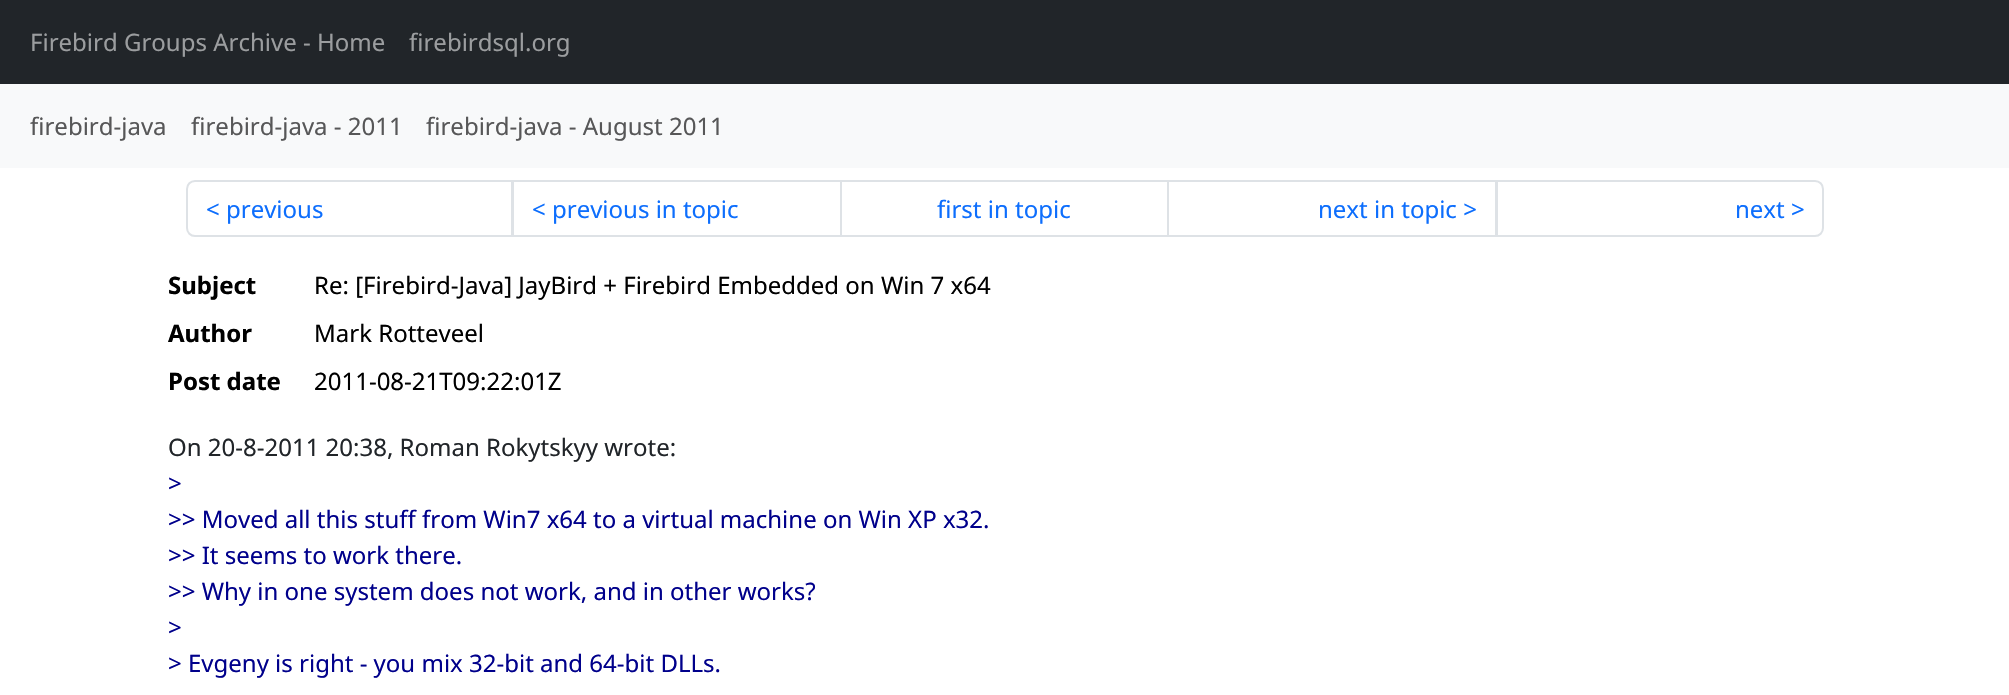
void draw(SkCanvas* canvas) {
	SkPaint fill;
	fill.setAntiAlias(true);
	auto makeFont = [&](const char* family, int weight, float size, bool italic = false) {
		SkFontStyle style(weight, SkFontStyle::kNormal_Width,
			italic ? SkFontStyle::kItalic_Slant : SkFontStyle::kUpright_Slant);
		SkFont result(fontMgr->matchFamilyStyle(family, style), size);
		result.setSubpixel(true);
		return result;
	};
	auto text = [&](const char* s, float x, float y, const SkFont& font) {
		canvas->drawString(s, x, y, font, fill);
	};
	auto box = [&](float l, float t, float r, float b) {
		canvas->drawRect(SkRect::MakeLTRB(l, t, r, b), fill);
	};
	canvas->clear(0xFFFFFFFF);
	fill.setColor(0xFF212529);
	box(0, 0, 2009, 84);
	fill.setColor(0xFFF8F9FA);
	box(0, 84, 2009, 168);
	fill.setStyle(SkPaint::kStroke_Style);
	fill.setStrokeWidth(2);
	fill.setColor(0xFFDEE2E6);
	canvas->drawPath(SkPathBuilder().moveTo(195, 181).lineTo(512, 181).lineTo(512, 236).lineTo(195, 236).cubicTo(190.5f, 236, 187, 232.5f, 187, 228).lineTo(187, 189).cubicTo(187, 184.5f, 190.5f, 181, 195, 181).close().detach(), fill);
	canvas->drawRect(SkRect::MakeLTRB(513, 181, 841, 236), fill);
	canvas->drawRect(SkRect::MakeLTRB(841, 181, 1168, 236), fill);
	canvas->drawRect(SkRect::MakeLTRB(1168, 181, 1496, 236), fill);
	fill.setStyle(SkPaint::kFill_Style);
	fill.setColor(0xFFFFFFFF);
	canvas->drawPath(SkPathBuilder().moveTo(1497, 181).lineTo(1815, 181).cubicTo(1819.5f, 181, 1823, 184.5f, 1823, 189).lineTo(1823, 228).cubicTo(1823, 232.5f, 1819.5f, 236, 1815, 236).lineTo(1497, 236).close().detach(), fill);
	fill.setStyle(SkPaint::kStroke_Style);
	fill.setColor(0xFFDEE2E6);
	canvas->drawPath(SkPathBuilder().moveTo(1497, 181).lineTo(1815, 181).cubicTo(1819.5f, 181, 1823, 184.5f, 1823, 189).lineTo(1823, 228).cubicTo(1823, 232.5f, 1819.5f, 236, 1815, 236).lineTo(1497, 236).close().detach(), fill);
	auto font1 = makeFont("Noto Sans", 400, 24);
	fill.setStyle(SkPaint::kFill_Style);
	fill.setColor(0xFF9B9D9F);
	text("Firebird Groups Archive - Home", 30, 51, font1);
	text("firebirdsql.org", 409, 51, font1);
	fill.setColor(0xFF575758);
	text("firebird-java", 30, 135, font1);
	text("firebird-java - 2011", 191, 135, font1);
	text("firebird-java - August 2011", 426, 135, font1);
	fill.setColor(0xFF0D6EFD);
	text("< previous", 206, 218, font1);
	text("< previous in topic", 532, 218, font1);
	text("first in topic", 937, 218, font1);
	text("next in topic >", 1318, 218, font1);
	text("next >", 1735, 218, font1);
	auto font2 = makeFont("Noto Sans", 700, 24);
	fill.setColor(0xFF000000);
	text("Subject", 168, 294, font2);
	text("Re: [Firebird-Java] JayBird + Firebird Embedded on Win 7 x64", 314, 294, font1);
	text("Author", 168, 342, font2);
	text("Mark Rotteveel", 314, 342, font1);
	text("Post date", 168, 390, font2);
	text("2011-08-21T09:22:01Z", 314, 390, font1);
	fill.setColor(0xFF212529);
	text("On 20-8-2011 20:38, Roman Rokytskyy wrote:", 168, 456, font1);
	fill.setColor(0xFF00008B);
	text(">", 168, 492, font1);
	text(">> Moved all this stuff from Win7 x64 to a virtual machine on Win XP x32.", 168, 528, font1);
	text(">> It seems to work there.", 168, 564, font1);
	text(">> Why in one system does not work, and in other works?", 168, 600, font1);
	text(">", 168, 636, font1);
	text("> Evgeny is right - you mix 32-bit and 64-bit DLLs.", 168, 672, font1);
}
